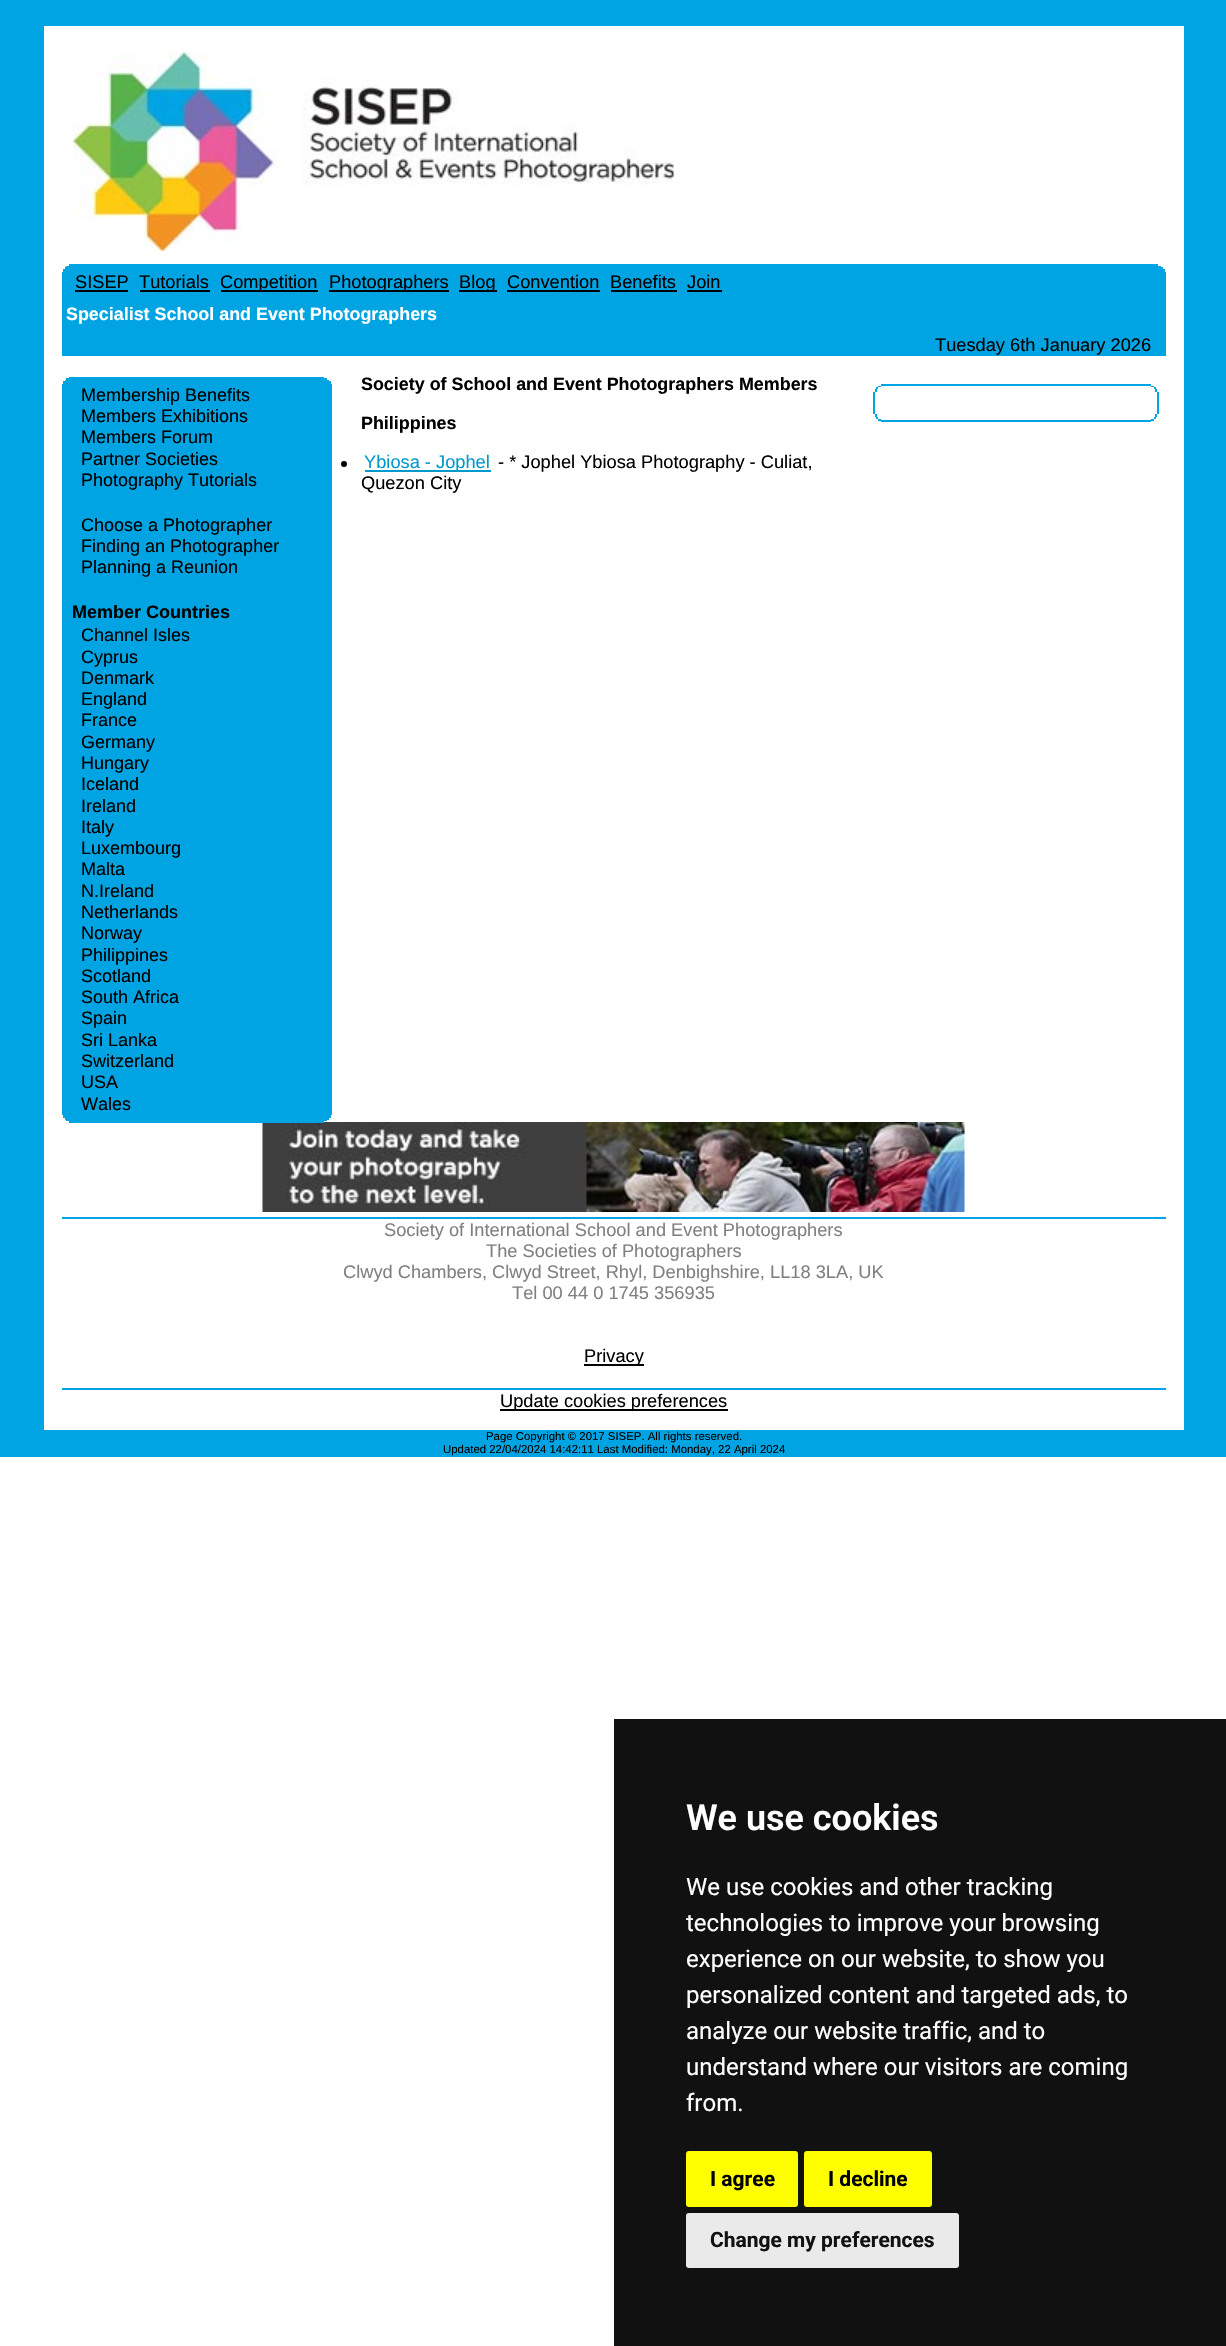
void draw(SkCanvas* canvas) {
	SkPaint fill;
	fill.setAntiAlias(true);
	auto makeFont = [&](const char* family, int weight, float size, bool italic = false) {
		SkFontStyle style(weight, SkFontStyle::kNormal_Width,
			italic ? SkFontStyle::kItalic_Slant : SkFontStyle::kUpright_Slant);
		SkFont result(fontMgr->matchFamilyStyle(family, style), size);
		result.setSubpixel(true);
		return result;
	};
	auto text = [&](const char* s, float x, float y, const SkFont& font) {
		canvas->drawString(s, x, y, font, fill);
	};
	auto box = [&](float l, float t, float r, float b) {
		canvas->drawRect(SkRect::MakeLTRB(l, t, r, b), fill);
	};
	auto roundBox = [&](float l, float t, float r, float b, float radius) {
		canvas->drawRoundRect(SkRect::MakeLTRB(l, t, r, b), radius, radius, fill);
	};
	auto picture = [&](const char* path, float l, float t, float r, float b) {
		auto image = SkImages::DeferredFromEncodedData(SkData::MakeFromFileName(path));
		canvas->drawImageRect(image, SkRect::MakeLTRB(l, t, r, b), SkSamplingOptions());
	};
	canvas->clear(0xFFFFFFFF);
	fill.setColor(0xFF00A4E3);
	box(0, 0, 1226, 1457);
	fill.setColor(0xFFFFFFFF);
	box(44, 26, 1184, 1430);
	picture("image0.png", 73, 52, 674, 251);
	fill.setColor(0xFF00A4E3);
	box(69, 264, 1158, 266);
	box(66, 266, 1161, 267);
	box(65, 267, 1163, 269);
	box(63, 269, 1165, 272);
	box(62, 272, 1166, 356);
	fill.setColor(0xFF000000);
	box(75, 290, 128, 292);
	box(140, 290, 210, 292);
	box(221, 290, 318, 292);
	box(329, 290, 449, 292);
	box(459, 290, 497, 292);
	box(507, 290, 600, 292);
	box(611, 290, 677, 292);
	box(687, 290, 722, 292);
	fill.setColor(0xFF00A4E3);
	box(69, 377, 324, 378);
	box(66, 378, 327, 380);
	box(65, 380, 329, 381);
	box(330, 381, 331, 384);
	box(330, 384, 332, 1115);
	box(62, 384, 63, 1115);
	box(63, 381, 330, 1118);
	box(330, 1115, 331, 1118);
	box(65, 1118, 329, 1120);
	box(66, 1120, 327, 1121);
	picture("image1.png", 262, 1122, 965, 1212);
	box(69, 1121, 324, 1123);
	fill.setColor(0xFF000000);
	canvas->drawCircle(344, 464, 3, fill);
	fill.setColor(0xFF0099CC);
	box(365, 470, 491, 472);
	fill.setColor(0xFF00A4E3);
	box(881, 384, 1151, 386);
	box(1151, 386, 1154, 387);
	box(878, 386, 881, 387);
	box(1154, 387, 1156, 389);
	box(876, 387, 878, 389);
	box(1155, 389, 1157, 392);
	box(875, 389, 877, 392);
	box(1157, 392, 1159, 414);
	box(873, 392, 875, 414);
	box(1155, 414, 1157, 417);
	box(875, 414, 877, 417);
	box(1154, 417, 1156, 419);
	box(876, 417, 878, 419);
	box(1151, 419, 1154, 421);
	box(878, 419, 881, 421);
	box(881, 420, 1151, 422);
	box(62, 1217, 1166, 1219);
	fill.setColor(0xFF000000);
	box(584, 1364, 644, 1366);
	fill.setColor(0xFF00A4E3);
	box(62, 1388, 1166, 1390);
	fill.setColor(0xFF000000);
	box(500, 1409, 728, 1411);
	fill.setColor(0xFF111111);
	box(614, 1719, 1226, 2346);
	fill.setColor(0xFFFFFF00);
	roundBox(686, 2151, 798, 2207, 3);
	roundBox(804, 2151, 932, 2207, 3);
	fill.setColor(0xFFEAEAEA);
	roundBox(686, 2213, 959, 2268, 3);
	auto font1 = makeFont("Liberation Sans", 400, 18.25f);
	fill.setColor(0xFF000000);
	text("SISEP", 75, 288, font1);
	text("Tutorials", 139, 288, font1);
	text("Competition", 220, 288, font1);
	text("Photographers", 329, 288, font1);
	text("Blog", 459, 288, font1);
	text("Convention", 507, 288, font1);
	text("Benefits", 610, 288, font1);
	text("Join", 687, 288, font1);
	auto font2 = makeFont("Liberation Sans", 700, 17.9f);
	fill.setColor(0xFFFFFFFF);
	text("Specialist School and Event Photographers", 66, 320, font2);
	fill.setColor(0xFF000000);
	text("Tuesday 6th January 2026", 935, 351, font1);
	auto font3 = makeFont("Liberation Sans", 400, 18);
	text("Membership Benefits", 81, 401, font3);
	text("Members Exhibitions", 81, 422, font3);
	text("Members Forum", 81, 443, font3);
	text("Partner Societies", 81, 465, font3);
	text("Photography Tutorials", 81, 486, font3);
	text("Choose a Photographer", 81, 531, font3);
	text("Finding an Photographer", 81, 552, font3);
	text("Planning a Reunion", 81, 573, font3);
	auto font4 = makeFont("Liberation Sans", 700, 18);
	text("Member Countries", 72, 618, font4);
	text("Channel Isles", 81, 641, font3);
	text("Cyprus", 81, 663, font3);
	text("Denmark", 81, 684, font3);
	text("England", 81, 705, font3);
	text("France", 81, 726, font3);
	text("Germany", 81, 748, font3);
	text("Hungary", 81, 769, font3);
	text("Iceland", 81, 790, font3);
	text("Ireland", 81, 812, font3);
	text("Italy", 81, 833, font3);
	text("Luxembourg", 81, 854, font3);
	text("Malta", 81, 875, font3);
	text("N.Ireland", 81, 897, font3);
	text("Netherlands", 81, 918, font3);
	text("Norway", 81, 939, font3);
	text("Philippines", 81, 961, font3);
	text("Scotland", 81, 982, font3);
	text("South Africa", 81, 1003, font3);
	text("Spain", 81, 1024, font3);
	text("Sri Lanka", 81, 1046, font3);
	text("Switzerland", 81, 1067, font3);
	text("USA", 81, 1088, font3);
	text("Wales", 81, 1110, font3);
	text("Society of School and Event Photographers Members", 361, 390, font2);
	text("Philippines", 361, 429, font2);
	fill.setColor(0xFF0099CC);
	text("Ybiosa - Jophel", 364, 468, font1);
	fill.setColor(0xFF000000);
	text("- * Jophel Ybiosa Photography - Culiat,", 498, 468, font1);
	text("Quezon City", 361, 489, font1);
	fill.setColor(0xFF808080);
	text("Society of International School and Event Photographers", 384, 1236, font1);
	text("The Societies of Photographers", 486, 1257, font1);
	text("Clwyd Chambers, Clwyd Street, Rhyl, Denbighshire, LL18 3LA, UK", 343, 1278, font1);
	text("Tel 00 44 0 1745 356935", 512, 1299, font1);
	fill.setColor(0xFF000000);
	text("Privacy", 584, 1362, font1);
	text("Update cookies preferences", 500, 1407, font1);
	auto font5 = makeFont("Liberation Sans", 400, 11.4f);
	text("Page Copyright © 2017 SISEP. All rights reserved.", 486, 1440, font5);
	text("Updated 22/04/2024 14:42:11 Last Modified: Monday, 22 April 2024", 443, 1453, font5);
	auto font6 = makeFont("Roboto", 600, 36);
	fill.setColor(0xFFFFFFFF);
	text("We use cookies", 686, 1830, font6);
	auto font7 = makeFont("Roboto", 400, 24);
	text("We use cookies and other tracking", 686, 1895, font7);
	text("technologies to improve your browsing", 686, 1931, font7);
	text("experience on our website, to show you", 686, 1967, font7);
	text("personalized content and targeted ads, to", 686, 2003, font7);
	text("analyze our website traffic, and to", 686, 2039, font7);
	text("understand where our visitors are coming", 686, 2075, font7);
	text("from.", 686, 2111, font7);
	auto font8 = makeFont("Roboto", 700, 21);
	fill.setColor(0xFF000000);
	text("I agree", 710, 2186, font8);
	text("I decline", 828, 2186, font8);
	fill.setColor(0xFF111111);
	text("Change my preferences", 710, 2247, font8);
}
